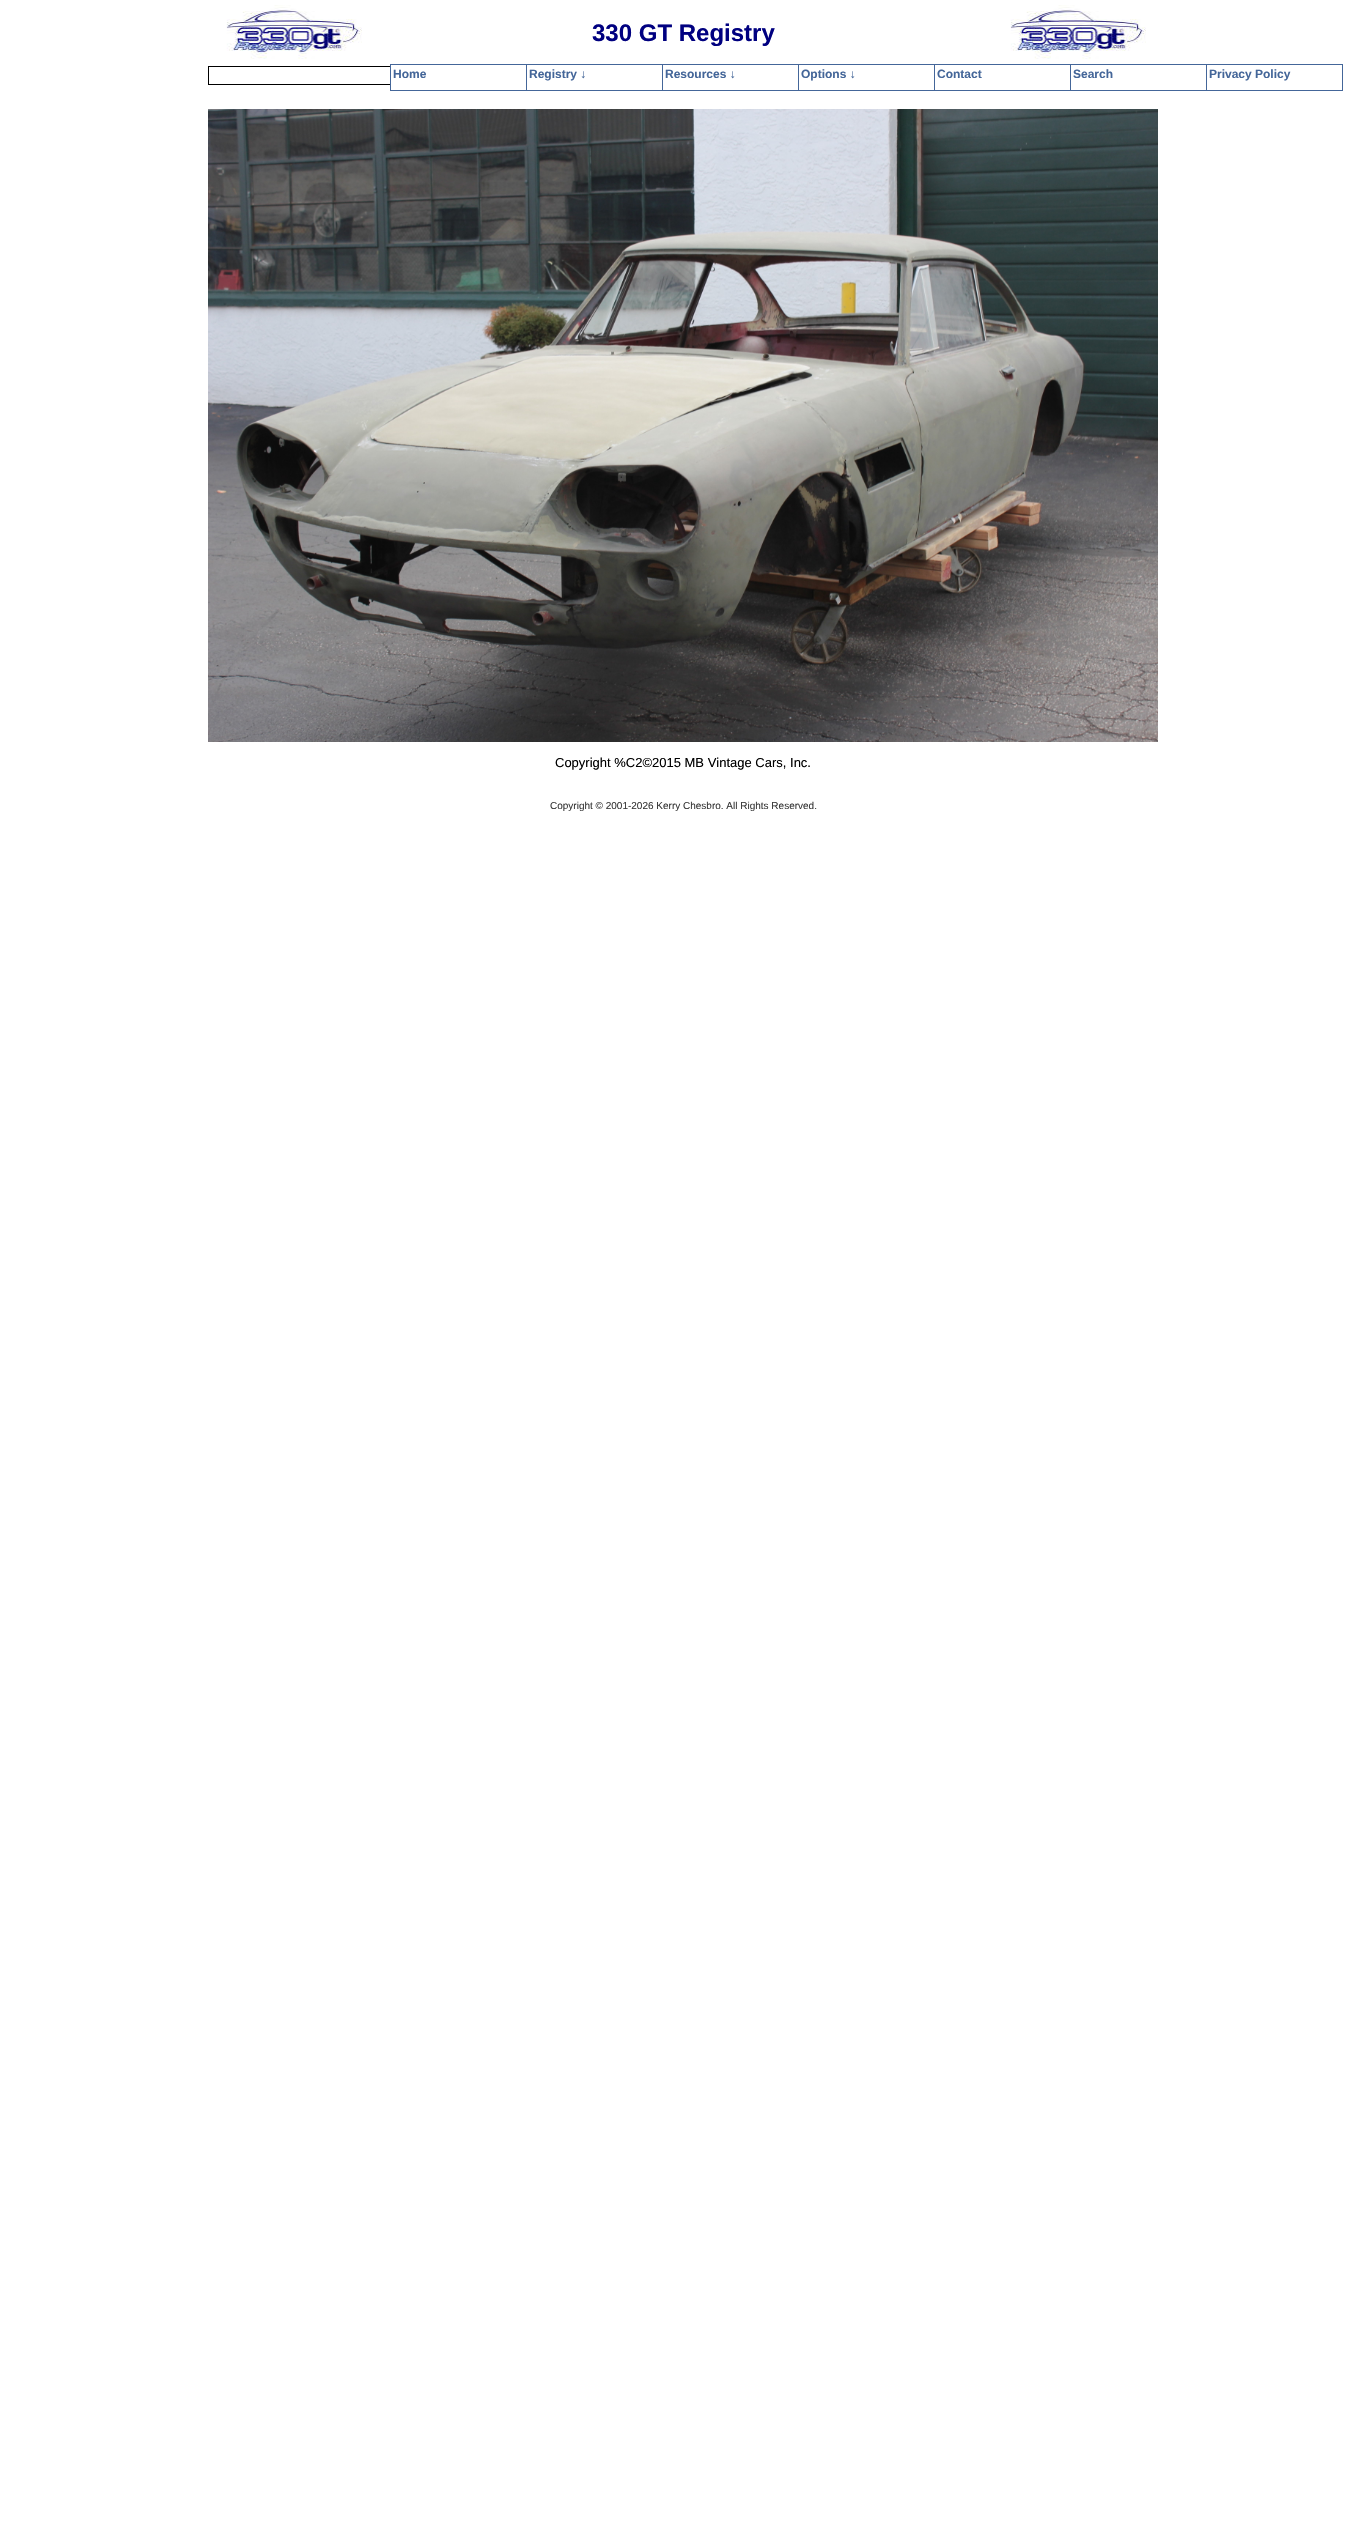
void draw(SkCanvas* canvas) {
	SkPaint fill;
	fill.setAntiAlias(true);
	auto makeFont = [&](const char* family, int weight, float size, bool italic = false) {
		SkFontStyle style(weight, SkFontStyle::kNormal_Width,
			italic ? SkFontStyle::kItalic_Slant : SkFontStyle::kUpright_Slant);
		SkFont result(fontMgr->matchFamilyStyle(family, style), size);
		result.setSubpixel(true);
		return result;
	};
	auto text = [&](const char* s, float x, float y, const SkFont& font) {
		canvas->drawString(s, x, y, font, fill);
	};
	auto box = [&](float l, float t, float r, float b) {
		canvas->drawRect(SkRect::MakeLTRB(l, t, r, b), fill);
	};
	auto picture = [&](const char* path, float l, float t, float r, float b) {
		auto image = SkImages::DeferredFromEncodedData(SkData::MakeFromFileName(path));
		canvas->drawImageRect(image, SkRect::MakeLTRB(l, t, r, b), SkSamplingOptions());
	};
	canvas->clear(0xFFFFFFFF);
	fill.setStyle(SkPaint::kStroke_Style);
	fill.setStrokeWidth(1);
	fill.setColor(0xFF000000);
	canvas->drawRect(SkRect::MakeLTRB(208.5f, 66.5f, 1157.5f, 84.5f), fill);
	fill.setStyle(SkPaint::kFill_Style);
	fill.setColor(0xFF446699);
	box(390, 64, 1343, 91);
	fill.setColor(0xFFFFFFFF);
	box(391, 65, 526, 90);
	picture("image0.png", 226, 5, 362, 59);
	picture("image0.png", 1010, 5, 1146, 59);
	picture("image1.png", 208, 109, 1158, 742);
	box(527, 65, 662, 90);
	box(663, 65, 798, 90);
	box(799, 65, 934, 90);
	box(935, 65, 1070, 90);
	box(1071, 65, 1206, 90);
	box(1207, 65, 1342, 90);
	auto font1 = makeFont("Liberation Sans", 700, 12);
	fill.setColor(0xFF446699);
	text("Home", 393, 78, font1);
	auto font2 = makeFont("Liberation Sans", 700, 24);
	fill.setColor(0xFF000080);
	text("330 GT Registry", 592, 41, font2);
	auto font3 = makeFont("Liberation Sans", 400, 13);
	fill.setColor(0xFF000000);
	text("Copyright %C2©2015 MB Vintage Cars, Inc.", 555, 767, font3);
	auto font4 = makeFont("Liberation Sans", 400, 10);
	fill.setColor(0xFF393939);
	text("Copyright © 2001-2026 Kerry Chesbro. All Rights Reserved.", 550, 809, font4);
	fill.setColor(0xFF446699);
	text("Registry ↓", 529, 78, font1);
	text("Resources ↓", 665, 78, font1);
	text("Options ↓", 801, 78, font1);
	text("Contact", 937, 78, font1);
	text("Search", 1073, 78, font1);
	text("Privacy Policy", 1209, 78, font1);
}
